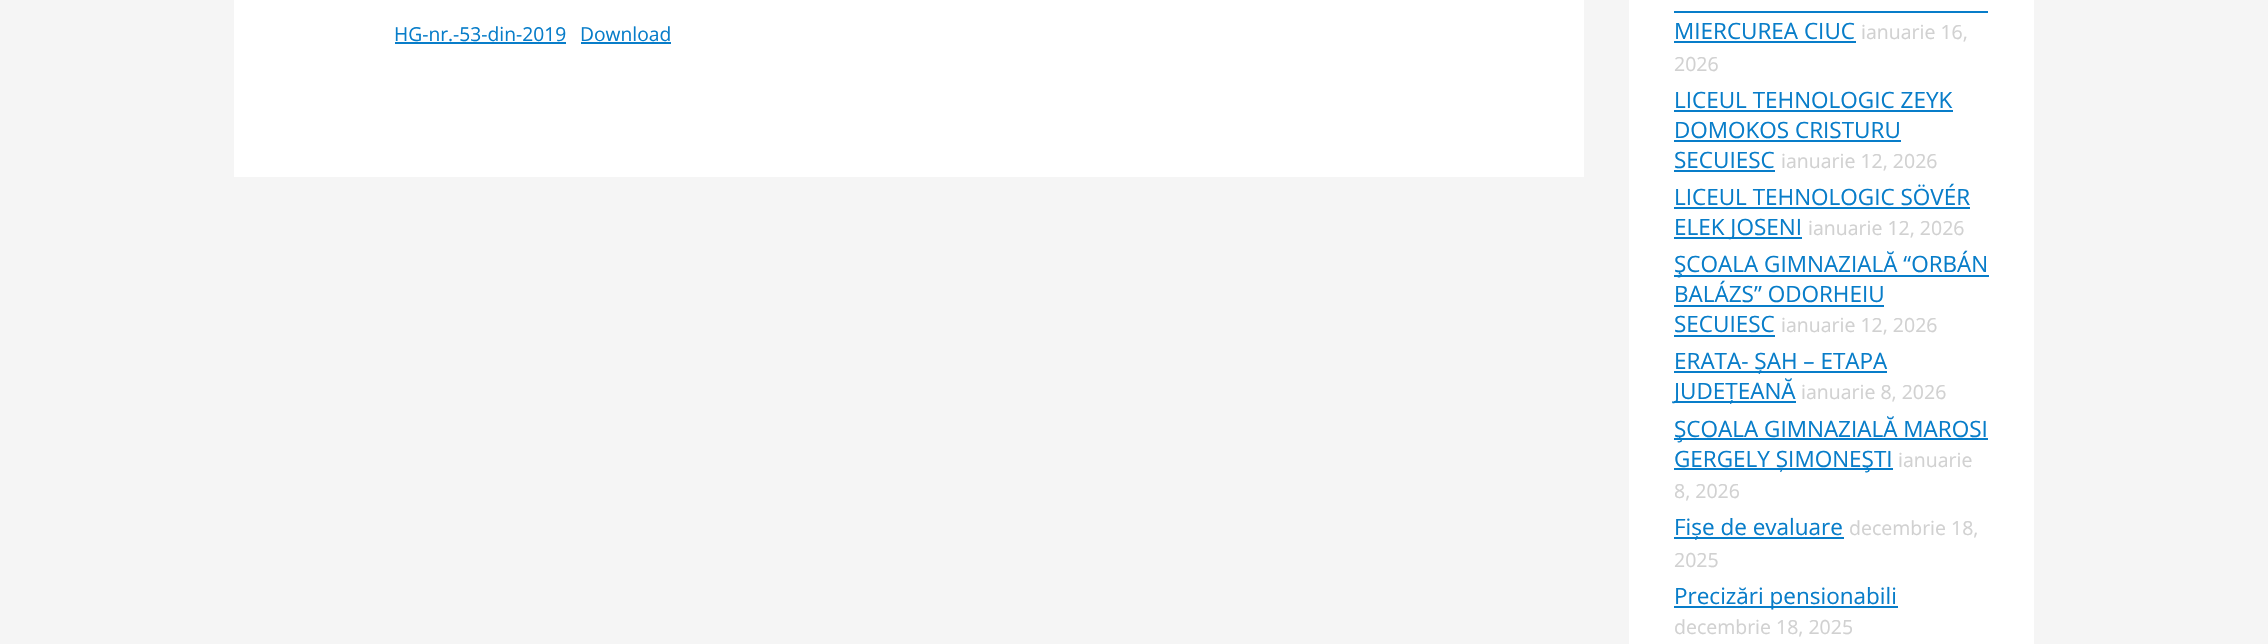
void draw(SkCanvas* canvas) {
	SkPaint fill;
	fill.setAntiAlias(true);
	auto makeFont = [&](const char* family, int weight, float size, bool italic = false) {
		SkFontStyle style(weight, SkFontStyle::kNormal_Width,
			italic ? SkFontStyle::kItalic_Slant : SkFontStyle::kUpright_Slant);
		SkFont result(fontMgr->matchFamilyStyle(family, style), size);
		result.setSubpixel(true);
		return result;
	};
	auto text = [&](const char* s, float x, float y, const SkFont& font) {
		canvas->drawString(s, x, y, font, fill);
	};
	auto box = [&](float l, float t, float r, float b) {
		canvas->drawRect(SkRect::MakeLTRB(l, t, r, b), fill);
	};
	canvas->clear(0xFFF5F5F5);
	fill.setColor(0xFFFFFFFF);
	box(234, 0, 1584, 177);
	fill.setColor(0xFF087DC9);
	box(395, 42, 566, 44);
	box(581, 42, 671, 44);
	fill.setColor(0xFFFFFFFF);
	box(1629, 0, 2034, 644);
	fill.setColor(0xFF087DC9);
	box(1674, 11, 1988, 13);
	box(1674, 41, 1856, 43);
	box(1674, 110, 1953, 112);
	box(1674, 140, 1901, 142);
	box(1674, 170, 1775, 172);
	box(1674, 207, 1970, 209);
	box(1674, 237, 1802, 239);
	box(1674, 275, 1989, 277);
	box(1674, 305, 1884, 307);
	box(1674, 335, 1775, 337);
	box(1674, 371, 1887, 373);
	box(1674, 401, 1796, 403);
	box(1674, 438, 1988, 440);
	box(1674, 468, 1893, 470);
	box(1674, 537, 1844, 539);
	box(1674, 606, 1898, 608);
	auto font1 = makeFont("Open Sans", 400, 19.25f);
	text("HG-nr.-53-din-2019", 394, 41, font1);
	text("Download", 580, 41, font1);
	auto font2 = makeFont("Open Sans", 400, 22.5f);
	text("MIERCUREA CIUC", 1674, 39, font2);
	auto font3 = makeFont("Open Sans", 400, 19.5f);
	fill.setColor(0xFFD1D1D1);
	text("ianuarie 16,", 1861, 39, font3);
	text("2026", 1674, 71, font3);
	fill.setColor(0xFF087DC9);
	text("LICEUL TEHNOLOGIC ZEYK", 1674, 108, font2);
	text("DOMOKOS CRISTURU", 1674, 138, font2);
	text("SECUIESC", 1674, 168, font2);
	fill.setColor(0xFFD1D1D1);
	text("ianuarie 12, 2026", 1781, 168, font3);
	fill.setColor(0xFF087DC9);
	text("LICEUL TEHNOLOGIC SÖVÉR", 1674, 205, font2);
	text("ELEK JOSENI", 1674, 235, font2);
	fill.setColor(0xFFD1D1D1);
	text("ianuarie 12, 2026", 1808, 235, font3);
	fill.setColor(0xFF087DC9);
	text("ŞCOALA GIMNAZIALĂ “ORBÁN", 1674, 272, font2);
	text("BALÁZS” ODORHEIU", 1674, 302, font2);
	text("SECUIESC", 1674, 332, font2);
	fill.setColor(0xFFD1D1D1);
	text("ianuarie 12, 2026", 1781, 332, font3);
	fill.setColor(0xFF087DC9);
	text("ERATA- ȘAH – ETAPA", 1674, 369, font2);
	text("JUDEȚEANĂ", 1674, 399, font2);
	fill.setColor(0xFFD1D1D1);
	text("ianuarie 8, 2026", 1801, 399, font3);
	fill.setColor(0xFF087DC9);
	text("ŞCOALA GIMNAZIALĂ MAROSI", 1674, 437, font2);
	text("GERGELY ȘIMONEŞTI", 1674, 467, font2);
	fill.setColor(0xFFD1D1D1);
	text("ianuarie", 1898, 467, font3);
	text("8, 2026", 1674, 498, font3);
	fill.setColor(0xFF087DC9);
	text("Fișe de evaluare", 1674, 535, font2);
	fill.setColor(0xFFD1D1D1);
	text("decembrie 18,", 1849, 535, font3);
	text("2025", 1674, 567, font3);
	fill.setColor(0xFF087DC9);
	text("Precizări pensionabili", 1674, 604, font2);
	fill.setColor(0xFFD1D1D1);
	text("decembrie 18, 2025", 1674, 634, font3);
}
